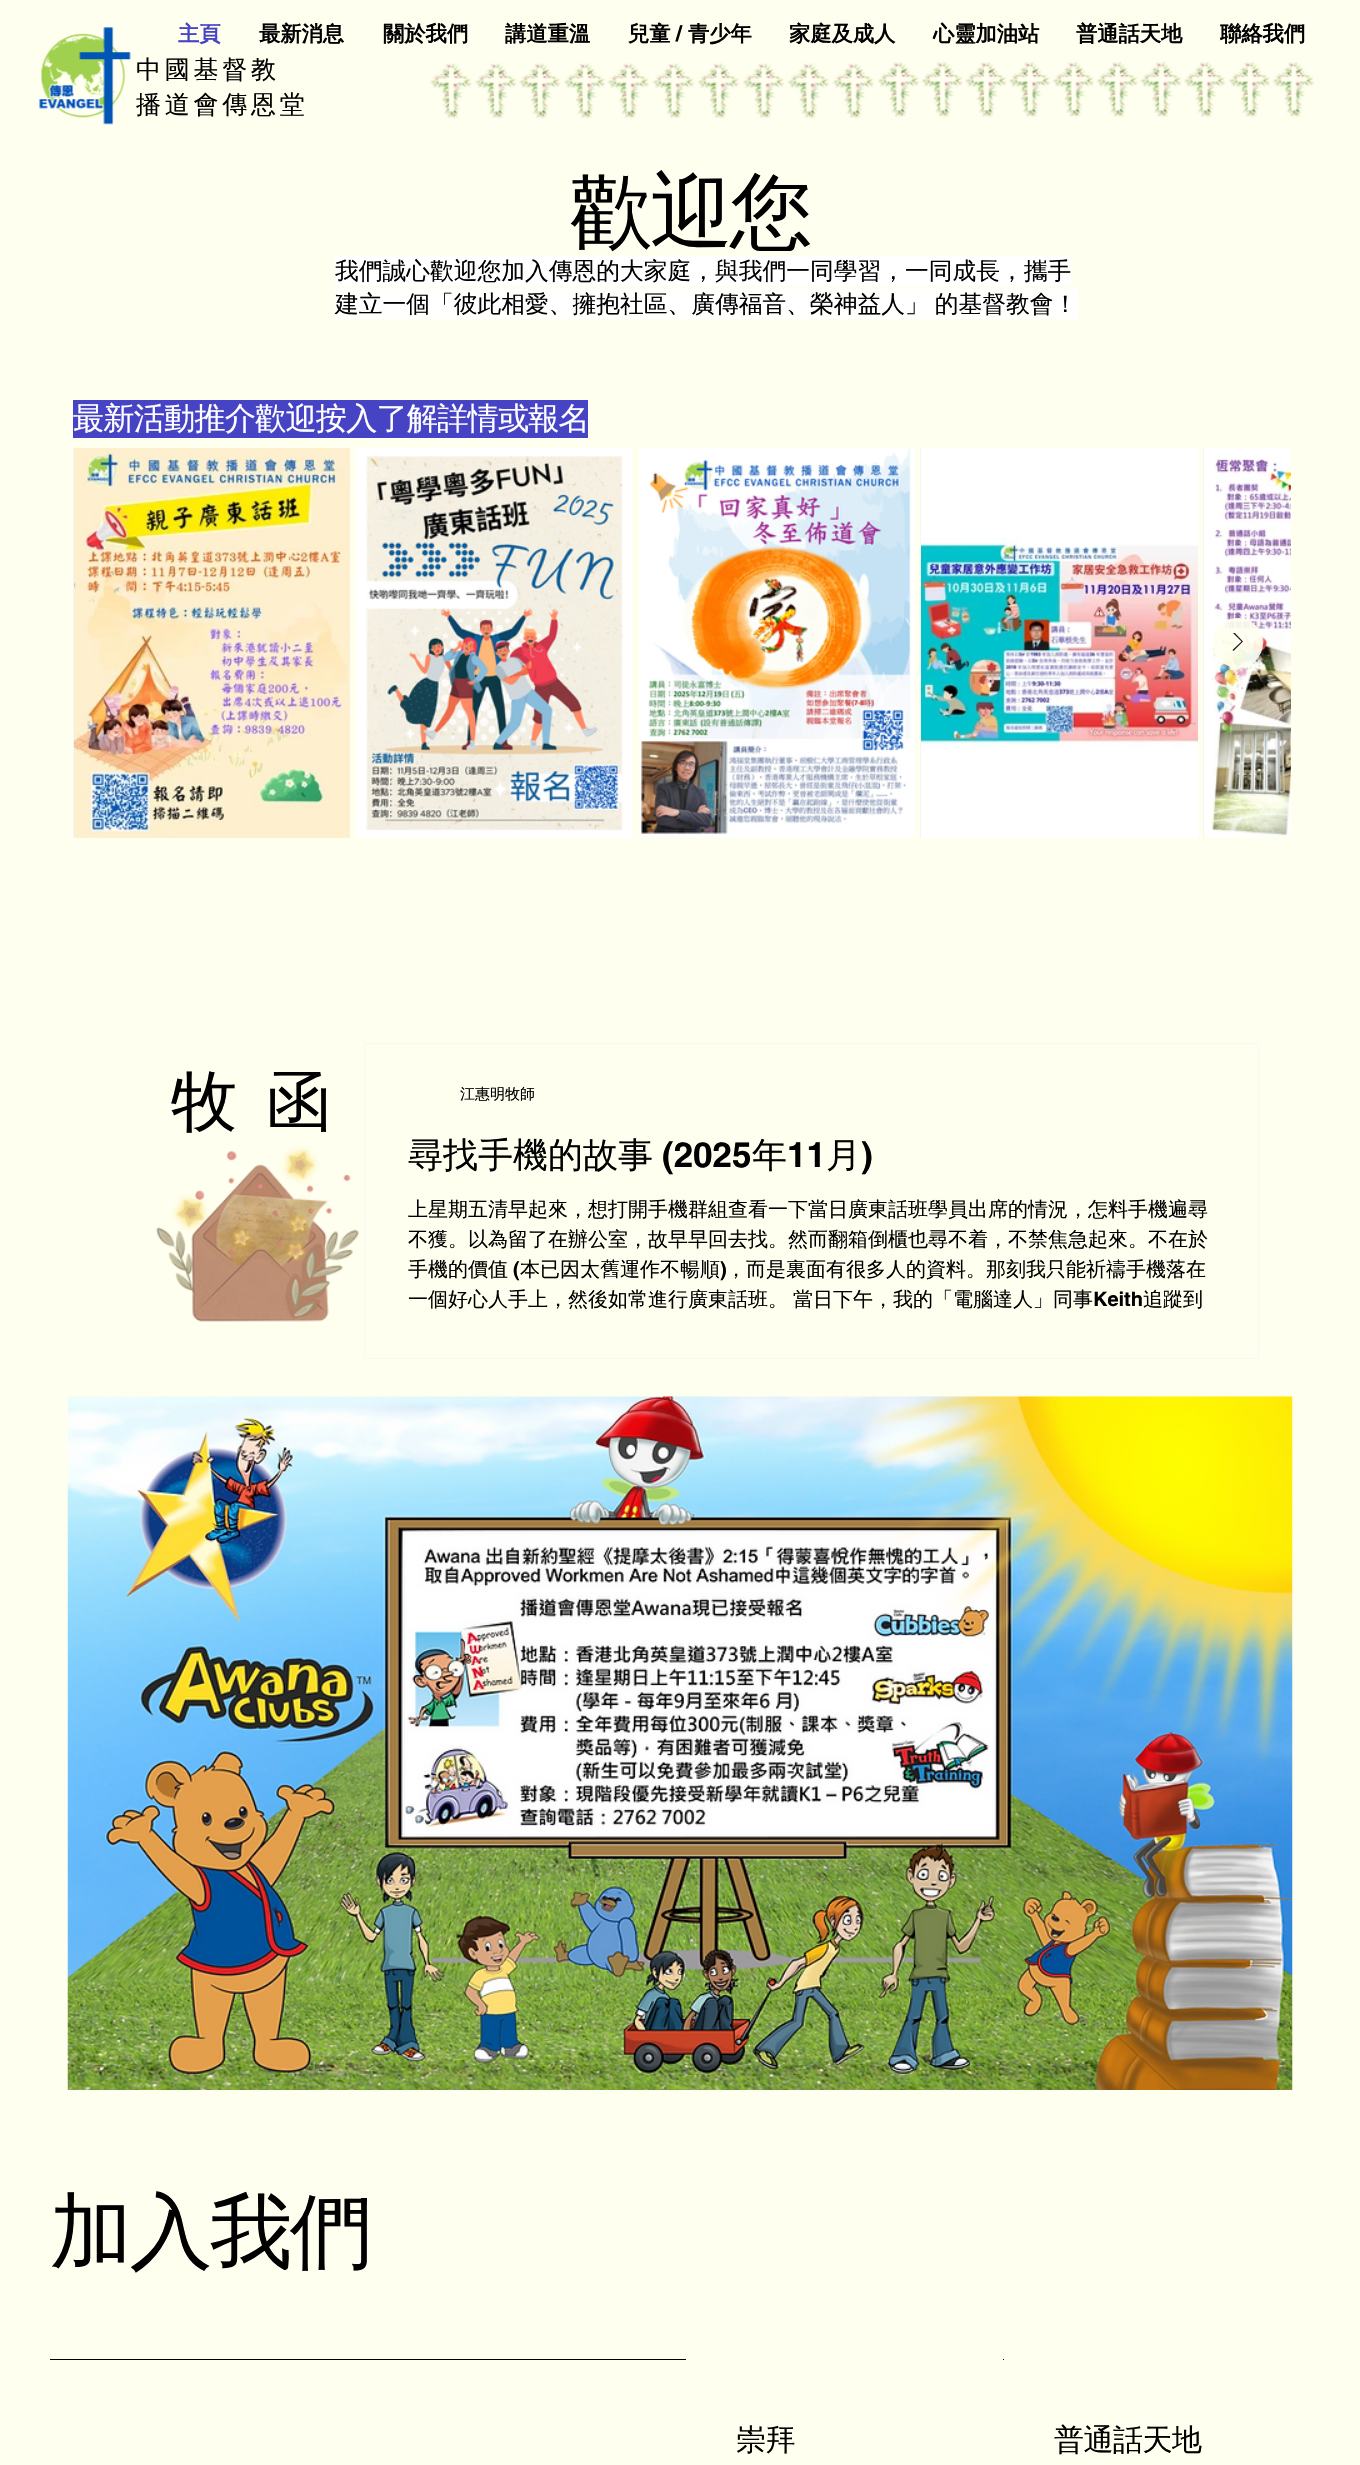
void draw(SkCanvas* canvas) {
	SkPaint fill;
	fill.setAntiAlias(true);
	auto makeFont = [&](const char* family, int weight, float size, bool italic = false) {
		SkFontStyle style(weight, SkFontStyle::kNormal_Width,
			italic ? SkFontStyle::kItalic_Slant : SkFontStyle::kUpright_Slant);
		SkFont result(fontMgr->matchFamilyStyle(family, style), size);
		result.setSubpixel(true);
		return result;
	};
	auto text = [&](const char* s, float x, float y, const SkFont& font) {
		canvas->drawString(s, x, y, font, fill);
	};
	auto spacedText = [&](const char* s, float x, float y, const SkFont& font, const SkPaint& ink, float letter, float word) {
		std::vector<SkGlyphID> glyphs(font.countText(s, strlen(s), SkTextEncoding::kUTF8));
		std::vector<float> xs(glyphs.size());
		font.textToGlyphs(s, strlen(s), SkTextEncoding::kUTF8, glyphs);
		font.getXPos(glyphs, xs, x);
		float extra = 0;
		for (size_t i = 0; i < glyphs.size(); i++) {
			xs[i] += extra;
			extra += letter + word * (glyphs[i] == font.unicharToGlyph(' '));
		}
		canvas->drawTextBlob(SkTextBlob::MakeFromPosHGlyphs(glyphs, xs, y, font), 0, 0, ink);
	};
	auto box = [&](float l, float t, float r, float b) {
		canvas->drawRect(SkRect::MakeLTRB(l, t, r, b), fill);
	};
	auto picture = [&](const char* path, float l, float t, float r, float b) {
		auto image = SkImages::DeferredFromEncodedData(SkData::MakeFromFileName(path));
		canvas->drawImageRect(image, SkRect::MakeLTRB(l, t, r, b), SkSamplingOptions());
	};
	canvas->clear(0xFFFFFFEF);
	picture("image0.png", 430, 63, 472, 119);
	picture("image0.png", 475, 63, 517, 119);
	picture("image1.png", 519, 63, 561, 119);
	picture("image1.png", 564, 63, 606, 119);
	picture("image2.png", 607, 63, 649, 119);
	picture("image2.png", 652, 63, 694, 119);
	picture("image2.png", 697, 63, 739, 119);
	picture("image2.png", 742, 63, 784, 119);
	picture("image2.png", 787, 63, 829, 119);
	picture("image2.png", 832, 63, 874, 119);
	picture("image3.png", 877, 62, 919, 118);
	picture("image4.png", 921, 61, 963, 118);
	picture("image5.png", 965, 61, 1007, 118);
	picture("image6.png", 1009, 61, 1051, 118);
	picture("image3.png", 1052, 62, 1094, 118);
	picture("image4.png", 1096, 61, 1138, 118);
	picture("image7.png", 1140, 61, 1182, 118);
	picture("image6.png", 1184, 61, 1226, 118);
	picture("image6.png", 1229, 61, 1271, 118);
	picture("image3.png", 1272, 62, 1314, 118);
	picture("image8.png", 38, 27, 131, 125);
	fill.setColor(0xFFFFFFFF);
	box(335, 256, 1071, 286);
	box(335, 289, 1078, 319);
	fill.setColor(0xFF4743C5);
	box(73, 400, 588, 438);
	fill.setColor(0xFFF5F5F5);
	box(73, 448, 74, 838);
	picture("image9.png", 74, 448, 350, 838);
	picture("image10.png", 356, 448, 632, 838);
	picture("image11.png", 639, 448, 915, 838);
	box(920, 448, 921, 838);
	picture("image12.png", 921, 448, 1198, 838);
	box(1203, 448, 1204, 838);
	picture("image13.png", 1204, 448, 1291, 838);
	fill.setColor(0xE6FFFFEF);
	canvas->drawCircle(1238, 643, 25, fill);
	canvas->save();
	canvas->clipRect(SkRect::MakeLTRB(1231, 633, 1244, 653));
	fill.setColor(0xE6000000);
	canvas->drawPath(SkPathBuilder().moveTo(1232.5f, 632.5f).lineTo(1233.5f, 631.5f).lineTo(1243, 641.5f).lineTo(1233.5f, 651).lineTo(1232.5f, 650).lineTo(1241.5f, 641.5f).close().detach(), fill);
	canvas->restore();
	fill.setStyle(SkPaint::kStroke_Style);
	fill.setStrokeWidth(1);
	fill.setColor(0xFFF8F8F4);
	canvas->drawRect(SkRect::MakeLTRB(364.5f, 1043.5f, 1258.5f, 1358.5f), fill);
	picture("image14.png", 156, 1146, 359, 1322);
	picture("image15.png", 67, 1396, 1293, 2090);
	fill.setStyle(SkPaint::kFill_Style);
	fill.setColor(0xFF000000);
	box(50, 2359, 1004, 2360);
	fill.setColor(0xFFFFFFEF);
	box(686, 2359, 1003, 2360);
	auto font1 = makeFont("WenQuanYi Zen Hei", 700, 21.25f);
	fill.setColor(0xFF4743C5);
	text("主頁", 178, 41, font1);
	fill.setColor(0xFF000000);
	text("最新消息", 259, 41, font1);
	text("關於我們", 383, 41, font1);
	text("講道重溫", 505, 41, font1);
	text("兒童", 628, 41, font1);
	auto font2 = makeFont("helvetica", 700, 21.25f);
	text("/", 676, 41, font2);
	text("青少年", 688, 41, font1);
	text("家庭及成人", 789, 41, font1);
	text("心靈加油站", 933, 41, font1);
	text("普通話天地", 1076, 41, font1);
	text("聯絡我們", 1220, 41, font1);
	auto font3 = makeFont("WenQuanYi Zen Hei", 500, 25);
	spacedText("中國基督教", 136, 78, font3, fill, 3.75f, 0);
	spacedText("播道會傳恩堂", 136, 113, font3, fill, 3.75f, 0);
	auto font4 = makeFont("WenQuanYi Zen Hei", 500, 82.5f);
	spacedText("歡迎您", 570, 240, font4, fill, -2.5f, 0);
	auto font5 = makeFont("WenQuanYi Zen Hei", 500, 23.75f);
	text("我們誠心歡迎您加入傳恩的大家庭，與我們一同學習，一同成長，攜手", 335, 279, font5);
	spacedText("建立一個「彼此相愛、擁抱社區、廣傳福音、榮神益人」 的基督教會！", 335, 312, font5, fill, 0, -1);
	auto font6 = makeFont("WenQuanYi Zen Hei", 500, 31.25f);
	fill.setColor(0xFFFFFFFF);
	spacedText("最新活動推介歡迎按入了解詳情或報名", 73, 429, font6, fill, -0.9f, 0);
	auto font7 = makeFont("WenQuanYi Zen Hei", 500, 66);
	fill.setColor(0xFF000000);
	spacedText("牧", 171, 1124, font7, fill, -3, 0);
	spacedText("函", 266, 1124, font7, fill, -3, 0);
	auto font8 = makeFont("WenQuanYi Zen Hei", 500, 15);
	text("江惠明牧師", 460, 1099, font8);
	auto font9 = makeFont("WenQuanYi Zen Hei", 500, 35);
	text("尋找手機的故事", 408, 1167, font9);
	auto font10 = makeFont("helvetica", 700, 35);
	text("(2025", 662, 1167, font10);
	text("年", 752, 1167, font9);
	text("11", 787, 1167, font10);
	text("月", 826, 1167, font9);
	text(")", 861, 1167, font10);
	auto font11 = makeFont("WenQuanYi Zen Hei", 500, 20);
	text("上星期五清早起來，想打開手機群組查看一下當日廣東話班學員出席的情況，怎料手機遍尋", 408, 1216, font11);
	text("不獲。以為留了在辦公室，故早早回去找。然而翻箱倒櫃也尋不着，不禁焦急起來。不在於", 408, 1246, font11);
	text("手機的價值", 408, 1276, font11);
	auto font12 = makeFont("helvetica", 700, 20);
	text("(", 513, 1276, font12);
	text("本已因太舊運作不暢順", 520, 1276, font11);
	text(")", 720, 1276, font12);
	text("，而是裏面有很多人的資料。那刻我只能祈禱手機落在", 726, 1276, font11);
	text("一個好心人手上，然後如常進行廣東話班。", 408, 1306, font11);
	text("當日下午，我的「電腦達人」同事", 793, 1306, font11);
	text("Keith", 1093, 1306, font12);
	text("追蹤到", 1143, 1306, font11);
	spacedText("加入我們", 50, 2260, font4, fill, -2.5f, 0);
	auto font13 = makeFont("WenQuanYi Zen Hei", 500, 30);
	spacedText("崇拜", 736, 2450, font13, fill, -0.5f, 0);
	spacedText("普通話天地", 1054, 2450, font13, fill, -0.5f, 0);
}
